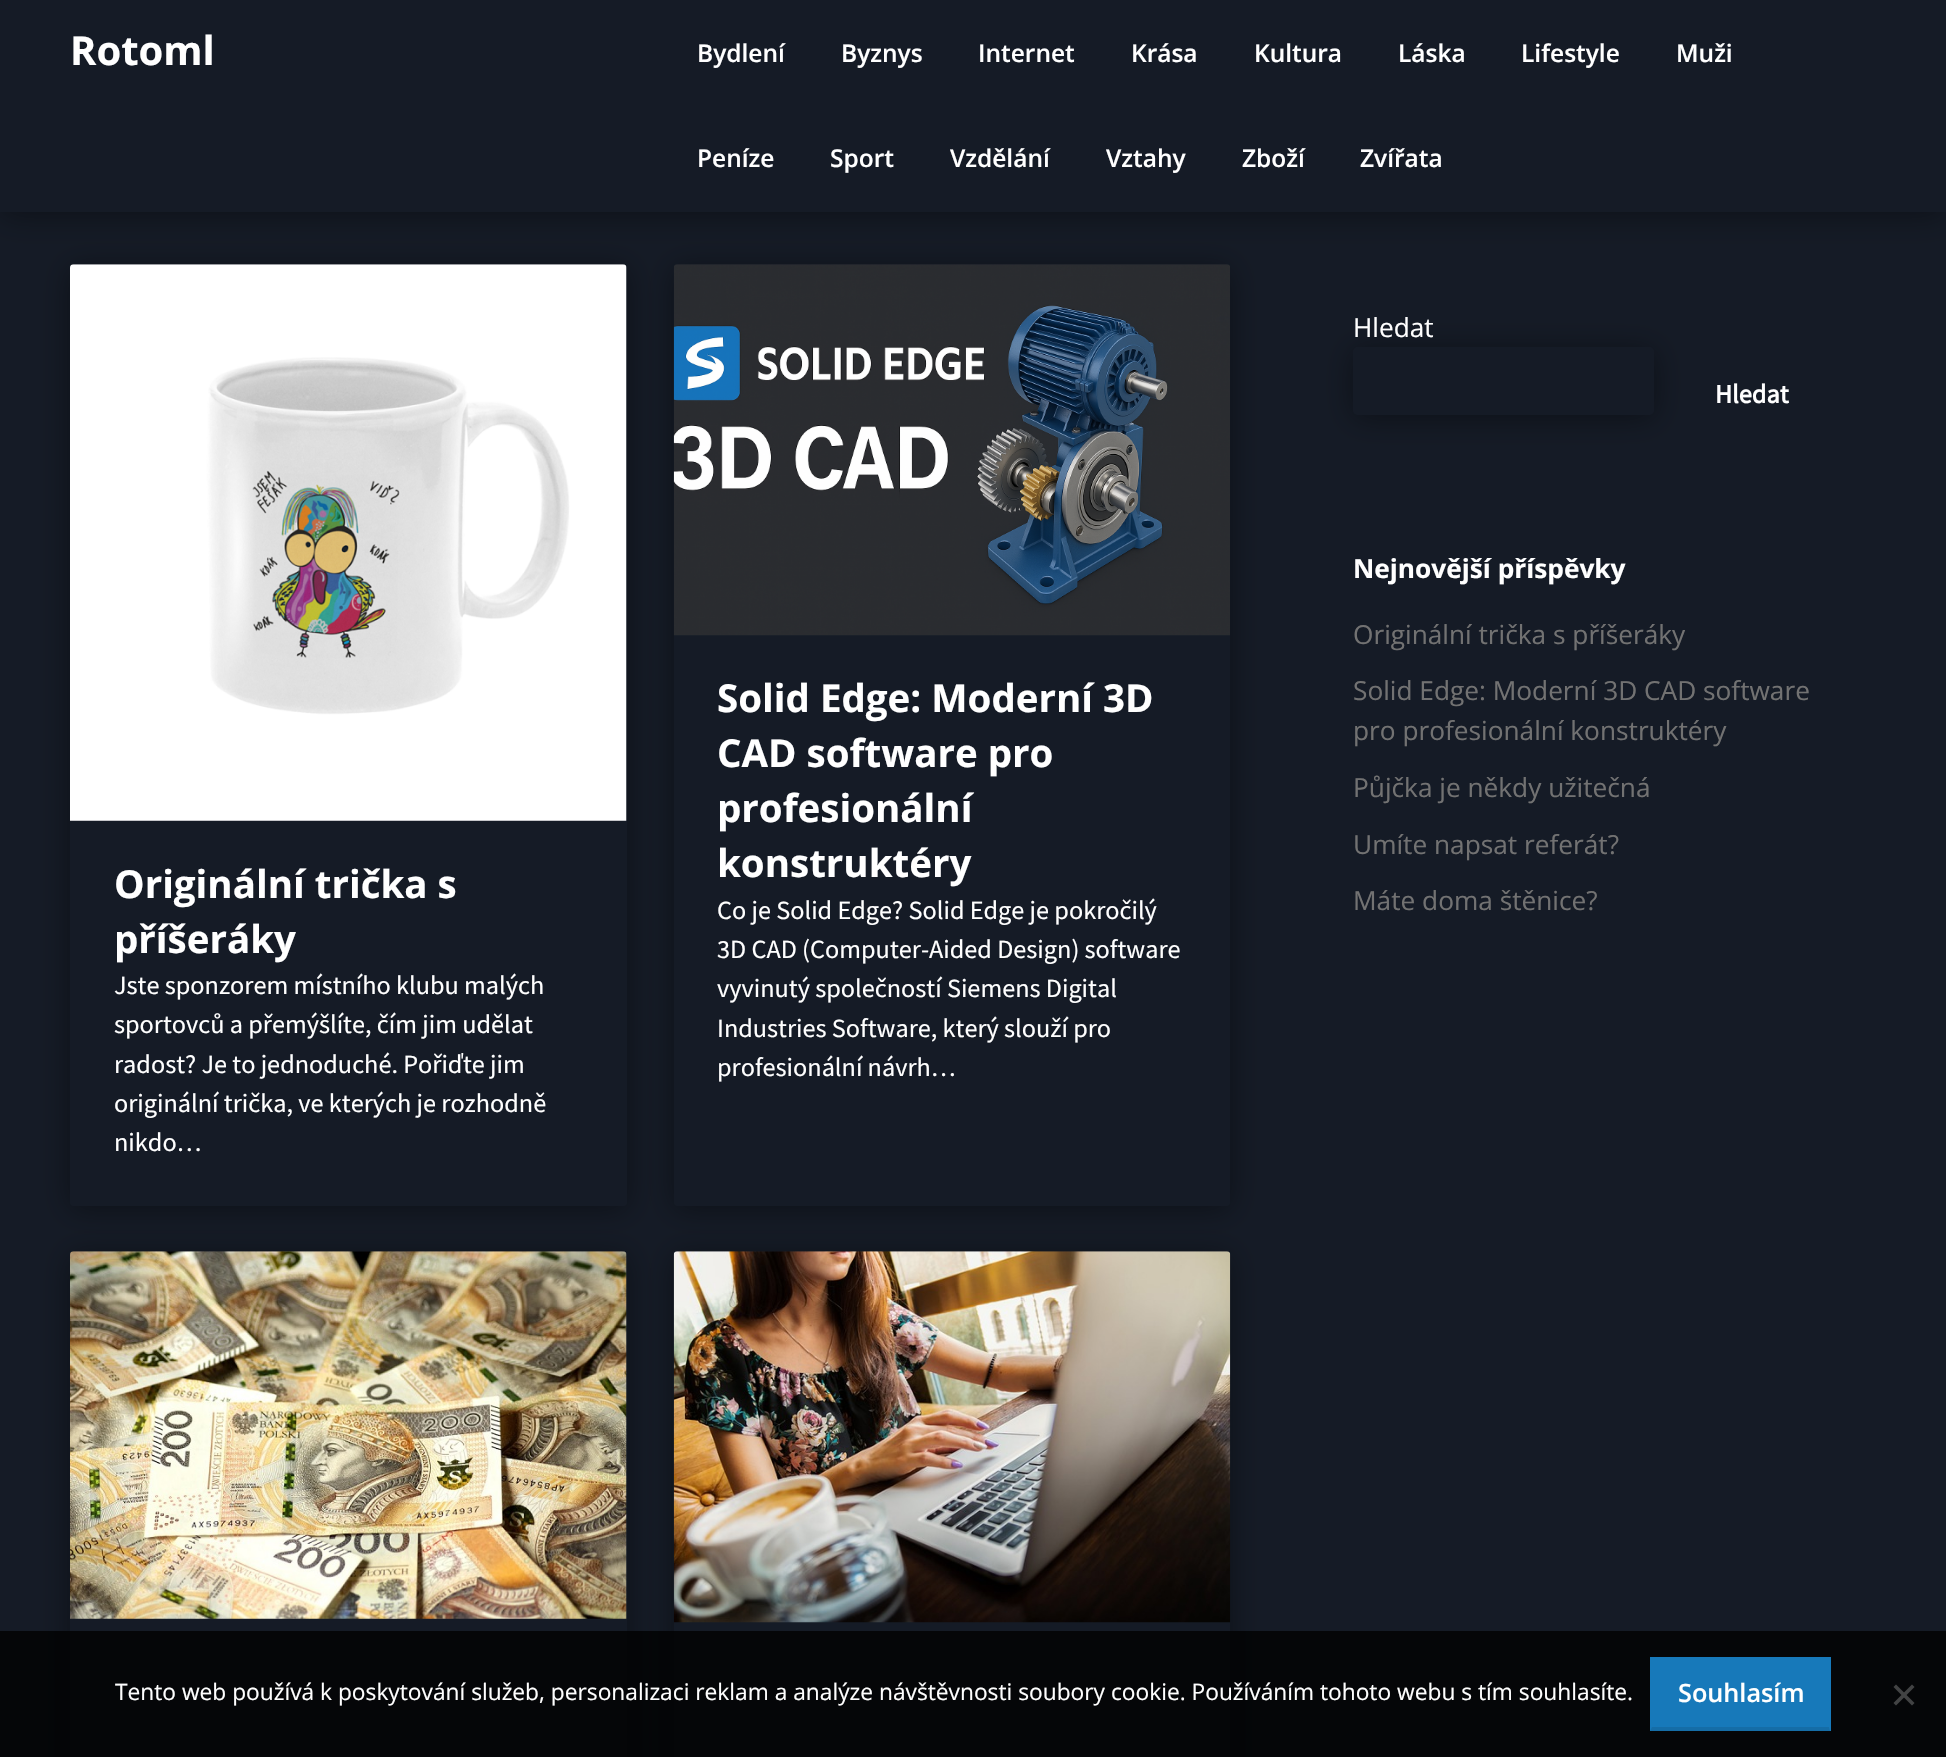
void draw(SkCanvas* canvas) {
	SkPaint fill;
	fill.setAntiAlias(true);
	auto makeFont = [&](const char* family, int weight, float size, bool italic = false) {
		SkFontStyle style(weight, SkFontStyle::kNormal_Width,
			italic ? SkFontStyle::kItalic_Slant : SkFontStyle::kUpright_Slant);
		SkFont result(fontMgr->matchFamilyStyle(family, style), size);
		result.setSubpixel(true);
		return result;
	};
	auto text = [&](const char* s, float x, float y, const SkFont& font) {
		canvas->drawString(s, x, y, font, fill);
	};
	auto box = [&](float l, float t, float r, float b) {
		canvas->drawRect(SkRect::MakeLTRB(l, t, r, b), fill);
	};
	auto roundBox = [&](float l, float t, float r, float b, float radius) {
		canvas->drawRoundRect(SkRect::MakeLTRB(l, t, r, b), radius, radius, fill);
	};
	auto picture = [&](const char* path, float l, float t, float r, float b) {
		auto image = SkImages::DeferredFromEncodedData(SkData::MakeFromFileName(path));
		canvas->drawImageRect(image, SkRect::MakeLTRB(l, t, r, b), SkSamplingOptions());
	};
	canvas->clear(0xFF151B26);
	fill.setColor(0x66000000);
	fill.setMaskFilter(SkMaskFilter::MakeBlur(kNormal_SkBlurStyle, 15));
	canvas->drawRect(SkRect::MakeLTRB(0, 4, 1946, 215), fill);
	fill.setMaskFilter(nullptr);
	fill.setColor(0xFF151B26);
	box(0, 0, 1946, 212);
	fill.setColor(0x66000000);
	fill.setMaskFilter(SkMaskFilter::MakeBlur(kNormal_SkBlurStyle, 15));
	canvas->drawRoundRect(SkRect::MakeLTRB(70, 268, 627, 1209), 4, 4, fill);
	fill.setMaskFilter(nullptr);
	fill.setColor(0xFF151B26);
	roundBox(70, 264, 627, 1206, 4);
	picture("image0.png", 70, 264, 627, 821);
	fill.setColor(0x66000000);
	fill.setMaskFilter(SkMaskFilter::MakeBlur(kNormal_SkBlurStyle, 15));
	canvas->drawRoundRect(SkRect::MakeLTRB(674, 268, 1230, 1209), 4, 4, fill);
	fill.setMaskFilter(nullptr);
	fill.setColor(0xFF151B26);
	roundBox(674, 264, 1230, 1206, 4);
	picture("image1.png", 673, 264, 1230, 636);
	fill.setColor(0x66000000);
	fill.setMaskFilter(SkMaskFilter::MakeBlur(kNormal_SkBlurStyle, 15));
	canvas->drawRoundRect(SkRect::MakeLTRB(70, 1255, 627, 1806), 4, 4, fill);
	fill.setMaskFilter(nullptr);
	fill.setColor(0xFF151B26);
	roundBox(70, 1251, 627, 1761, 4);
	picture("image2.png", 70, 1251, 627, 1619);
	fill.setColor(0x66000000);
	fill.setMaskFilter(SkMaskFilter::MakeBlur(kNormal_SkBlurStyle, 15));
	canvas->drawRoundRect(SkRect::MakeLTRB(674, 1255, 1230, 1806), 4, 4, fill);
	fill.setMaskFilter(nullptr);
	fill.setColor(0xFF151B26);
	roundBox(674, 1251, 1230, 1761, 4);
	picture("image3.png", 673, 1251, 1231, 1623);
	fill.setColor(0x66000000);
	fill.setMaskFilter(SkMaskFilter::MakeBlur(kNormal_SkBlurStyle, 15));
	canvas->drawRoundRect(SkRect::MakeLTRB(1353, 350, 1654, 418), 5, 5, fill);
	fill.setMaskFilter(nullptr);
	fill.setColor(0xFF151B26);
	roundBox(1353, 347, 1654, 415, 5);
	fill.setColor(0xCC000000);
	box(0, 1631, 1946, 1757);
	fill.setColor(0xFF1779BA);
	box(1650, 1657, 1831, 1731);
	fill.setColor(0xFF156DA7);
	canvas->drawPath(SkPathBuilder().moveTo(1830, 1731).lineTo(1650, 1731).lineTo(1652, 1727).lineTo(1829, 1727).close().detach(), fill);
	fill.setColor(0xFF424344);
	canvas->drawPath(SkPathBuilder().moveTo(1912, 1684.5f).lineTo(1914.5f, 1687).lineTo(1896, 1705.5f).lineTo(1893.5f, 1703).close().detach(), fill);
	canvas->drawPath(SkPathBuilder().moveTo(1893.5f, 1687).lineTo(1896, 1684.5f).lineTo(1914.5f, 1703).lineTo(1912, 1705.5f).close().detach(), fill);
	auto font1 = makeFont("Open Sans", 700, 40);
	fill.setColor(0xFFFFFFFF);
	text("Rotoml", 70, 65, font1);
	auto font2 = makeFont("Open Sans", 600, 24.5f);
	text("Bydlení", 697, 62, font2);
	text("Byznys", 841, 62, font2);
	text("Internet", 978, 62, font2);
	text("Krása", 1131, 62, font2);
	text("Kultura", 1254, 62, font2);
	text("Láska", 1398, 62, font2);
	text("Lifestyle", 1521, 62, font2);
	text("Muži", 1676, 62, font2);
	text("Peníze", 697, 167, font2);
	text("Sport", 830, 167, font2);
	text("Vzdělání", 950, 167, font2);
	text("Vztahy", 1106, 167, font2);
	text("Zboží", 1242, 167, font2);
	text("Zvířata", 1360, 167, font2);
	auto font3 = makeFont("Open Sans", 700, 38.5f);
	text("Originální trička s", 114, 898, font3);
	text("příšeráky", 114, 953, font3);
	auto font4 = makeFont("Source Sans Pro", 400, 26.25f);
	text("Jste sponzorem místního klubu malých", 114, 994, font4);
	text("sportovců a přemýšlíte, čím jim udělat", 114, 1033, font4);
	text("radost? Je to jednoduché. Pořiďte jim", 114, 1073, font4);
	text("originální trička, ve kterých je rozhodně", 114, 1112, font4);
	text("nikdo…", 114, 1151, font4);
	text("Solid Edge: Moderní 3D", 717, 712, font3);
	text("CAD software pro", 717, 767, font3);
	text("profesionální", 717, 822, font3);
	text("konstruktéry", 717, 877, font3);
	text("Co je Solid Edge? Solid Edge je pokročilý", 717, 919, font4);
	text("3D CAD (Computer-Aided Design) software", 717, 958, font4);
	text("vyvinutý společností Siemens Digital", 717, 997, font4);
	text("Industries Software, který slouží pro", 717, 1037, font4);
	text("profesionální návrh…", 717, 1076, font4);
	auto font5 = makeFont("Open Sans", 400, 26.25f);
	text("Hledat", 1353, 337, font5);
	auto font6 = makeFont("Source Sans Pro", 700, 26.25f);
	text("Hledat", 1715, 403, font6);
	auto font7 = makeFont("Open Sans", 700, 26.25f);
	text("Nejnovější příspěvky", 1353, 578, font7);
	fill.setColor(0xFF727272);
	text("Originální trička s příšeráky", 1353, 644, font5);
	text("Solid Edge: Moderní 3D CAD software", 1353, 700, font5);
	text("pro profesionální konstruktéry", 1353, 740, font5);
	text("Půjčka je někdy užitečná", 1353, 797, font5);
	text("Umíte napsat referát?", 1353, 854, font5);
	text("Máte doma štěnice?", 1353, 910, font5);
	auto font8 = makeFont("Open Sans", 400, 22.75f);
	fill.setColor(0xFFFFFFFF);
	text("Tento web používá k poskytování služeb, personalizaci reklam a analýze návštěvnosti soubory cookie. Používáním tohoto webu s tím souhlasíte.", 115, 1700, font8);
	auto font9 = makeFont("Open Sans", 600, 25.25f);
	text("Souhlasím", 1678, 1702, font9);
}
